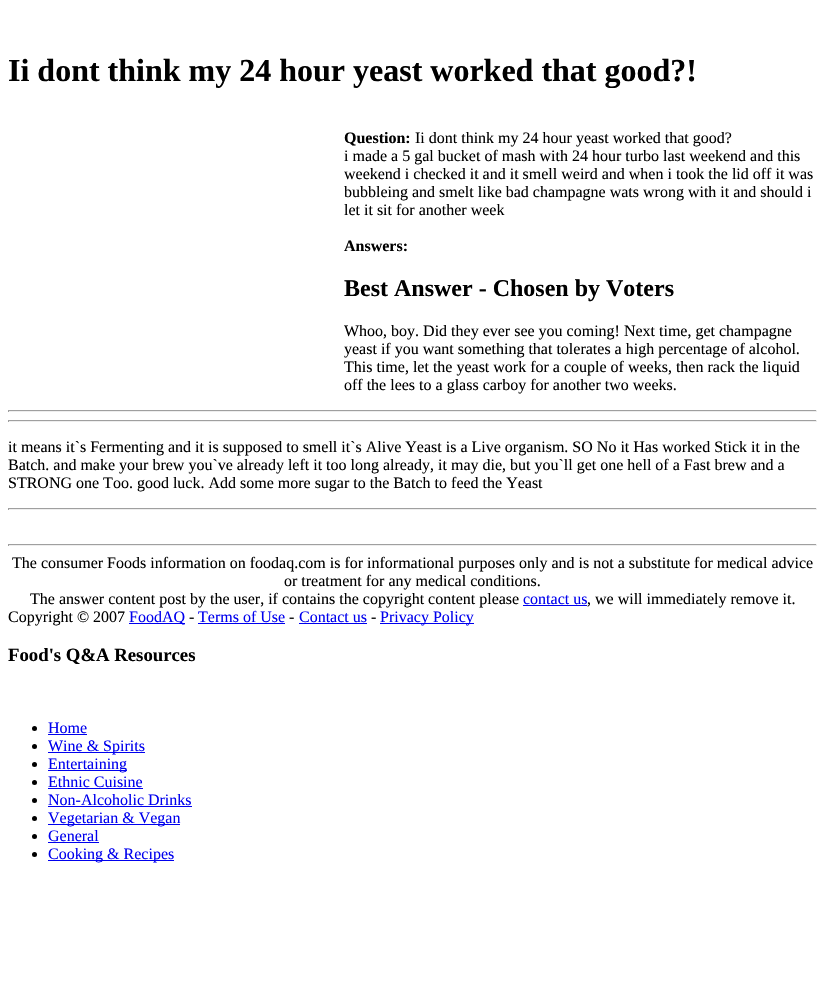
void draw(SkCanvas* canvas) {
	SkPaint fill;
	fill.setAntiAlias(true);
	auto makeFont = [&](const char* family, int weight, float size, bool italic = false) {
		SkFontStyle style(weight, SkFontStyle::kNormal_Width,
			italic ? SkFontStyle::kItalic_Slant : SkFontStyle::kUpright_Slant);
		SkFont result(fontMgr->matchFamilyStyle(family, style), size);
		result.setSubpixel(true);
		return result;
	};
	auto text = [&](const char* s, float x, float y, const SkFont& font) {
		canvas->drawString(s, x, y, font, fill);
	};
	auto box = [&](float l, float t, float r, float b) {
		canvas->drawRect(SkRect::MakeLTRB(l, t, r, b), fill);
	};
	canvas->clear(0xFFFFFFFF);
	fill.setColor(0xFF9F9F9F);
	box(8, 410, 817, 411);
	fill.setColor(0xFFEEEEEE);
	box(816, 410, 817, 412);
	box(8, 411, 817, 412);
	fill.setColor(0xFF9F9F9F);
	box(8, 410, 9, 412);
	box(8, 420, 817, 421);
	fill.setColor(0xFFEEEEEE);
	box(816, 420, 817, 422);
	box(8, 421, 817, 422);
	fill.setColor(0xFF9F9F9F);
	box(8, 420, 9, 422);
	box(8, 508, 817, 509);
	fill.setColor(0xFFEEEEEE);
	box(816, 508, 817, 510);
	box(8, 509, 817, 510);
	fill.setColor(0xFF9F9F9F);
	box(8, 508, 9, 510);
	box(8, 544, 817, 545);
	fill.setColor(0xFFEEEEEE);
	box(816, 544, 817, 546);
	box(8, 545, 817, 546);
	fill.setColor(0xFF9F9F9F);
	box(8, 544, 9, 546);
	fill.setColor(0xFF0000EE);
	box(523, 605, 587, 606);
	box(129, 623, 185, 624);
	box(198, 623, 285, 624);
	box(299, 623, 367, 624);
	box(380, 623, 474, 624);
	fill.setColor(0xFF000000);
	canvas->drawCircle(34.5f, 728.5f, 2.5f, fill);
	fill.setColor(0xFF0000EE);
	box(48, 734, 87, 735);
	fill.setColor(0xFF000000);
	canvas->drawCircle(34.5f, 746.5f, 2.5f, fill);
	fill.setColor(0xFF0000EE);
	box(48, 752, 145, 753);
	fill.setColor(0xFF000000);
	canvas->drawCircle(34.5f, 764.5f, 2.5f, fill);
	fill.setColor(0xFF0000EE);
	box(48, 770, 127, 771);
	fill.setColor(0xFF000000);
	canvas->drawCircle(34.5f, 782.5f, 2.5f, fill);
	fill.setColor(0xFF0000EE);
	box(48, 788, 143, 789);
	fill.setColor(0xFF000000);
	canvas->drawCircle(34.5f, 800.5f, 2.5f, fill);
	fill.setColor(0xFF0000EE);
	box(48, 806, 192, 807);
	fill.setColor(0xFF000000);
	canvas->drawCircle(34.5f, 818.5f, 2.5f, fill);
	fill.setColor(0xFF0000EE);
	box(48, 824, 180, 825);
	fill.setColor(0xFF000000);
	canvas->drawCircle(34.5f, 836.5f, 2.5f, fill);
	fill.setColor(0xFF0000EE);
	box(48, 842, 99, 843);
	fill.setColor(0xFF000000);
	canvas->drawCircle(34.5f, 854.5f, 2.5f, fill);
	fill.setColor(0xFF0000EE);
	box(48, 860, 174, 861);
	auto font1 = makeFont("Liberation Serif", 700, 32);
	fill.setColor(0xFF000000);
	text("Ii dont think my 24 hour yeast worked that good?!", 8, 81, font1);
	auto font2 = makeFont("Liberation Serif", 700, 16);
	text("Question:", 344, 143, font2);
	auto font3 = makeFont("Liberation Serif", 400, 16);
	text("Ii dont think my 24 hour yeast worked that good?", 415, 143, font3);
	text("i made a 5 gal bucket of mash with 24 hour turbo last weekend and this", 344, 161, font3);
	text("weekend i checked it and it smell weird and when i took the lid off it was", 344, 179, font3);
	text("bubbleing and smelt like bad champagne wats wrong with it and should i", 344, 197, font3);
	text("let it sit for another week", 344, 215, font3);
	text("Answers:", 344, 251, font2);
	auto font4 = makeFont("Liberation Serif", 700, 24);
	text("Best Answer - Chosen by Voters", 344, 296, font4);
	text("Whoo, boy. Did they ever see you coming! Next time, get champagne", 344, 336, font3);
	text("yeast if you want something that tolerates a high percentage of alcohol.", 344, 354, font3);
	text("This time, let the yeast work for a couple of weeks, then rack the liquid", 344, 372, font3);
	text("off the lees to a glass carboy for another two weeks.", 344, 390, font3);
	text("it means it`s Fermenting and it is supposed to smell it`s Alive Yeast is a Live organism. SO No it Has worked Stick it in the", 8, 452, font3);
	text("Batch. and make your brew you`ve already left it too long already, it may die, but you`ll get one hell of a Fast brew and a", 8, 470, font3);
	text("STRONG one Too. good luck. Add some more sugar to the Batch to feed the Yeast", 8, 488, font3);
	text("The consumer Foods information on foodaq.com is for informational purposes only and is not a substitute for medical advice", 12, 568, font3);
	text("or treatment for any medical conditions.", 284, 586, font3);
	text("The answer content post by the user, if contains the copyright content please", 30, 604, font3);
	fill.setColor(0xFF0000EE);
	text("contact us", 523, 604, font3);
	fill.setColor(0xFF000000);
	text(", we will immediately remove it.", 587, 604, font3);
	text("Copyright © 2007", 8, 622, font3);
	fill.setColor(0xFF0000EE);
	text("FoodAQ", 129, 622, font3);
	fill.setColor(0xFF000000);
	text("-", 189, 622, font3);
	fill.setColor(0xFF0000EE);
	text("Terms of Use", 198, 622, font3);
	fill.setColor(0xFF000000);
	text("-", 289, 622, font3);
	fill.setColor(0xFF0000EE);
	text("Contact us", 299, 622, font3);
	fill.setColor(0xFF000000);
	text("-", 371, 622, font3);
	fill.setColor(0xFF0000EE);
	text("Privacy Policy", 380, 622, font3);
	auto font5 = makeFont("Liberation Serif", 700, 18.75f);
	fill.setColor(0xFF000000);
	text("Food's Q&A Resources", 8, 661, font5);
	fill.setColor(0xFF0000EE);
	text("Home", 48, 733, font3);
	text("Wine & Spirits", 48, 751, font3);
	text("Entertaining", 48, 769, font3);
	text("Ethnic Cuisine", 48, 787, font3);
	text("Non-Alcoholic Drinks", 48, 805, font3);
	text("Vegetarian & Vegan", 48, 823, font3);
	text("General", 48, 841, font3);
	text("Cooking & Recipes", 48, 859, font3);
}
